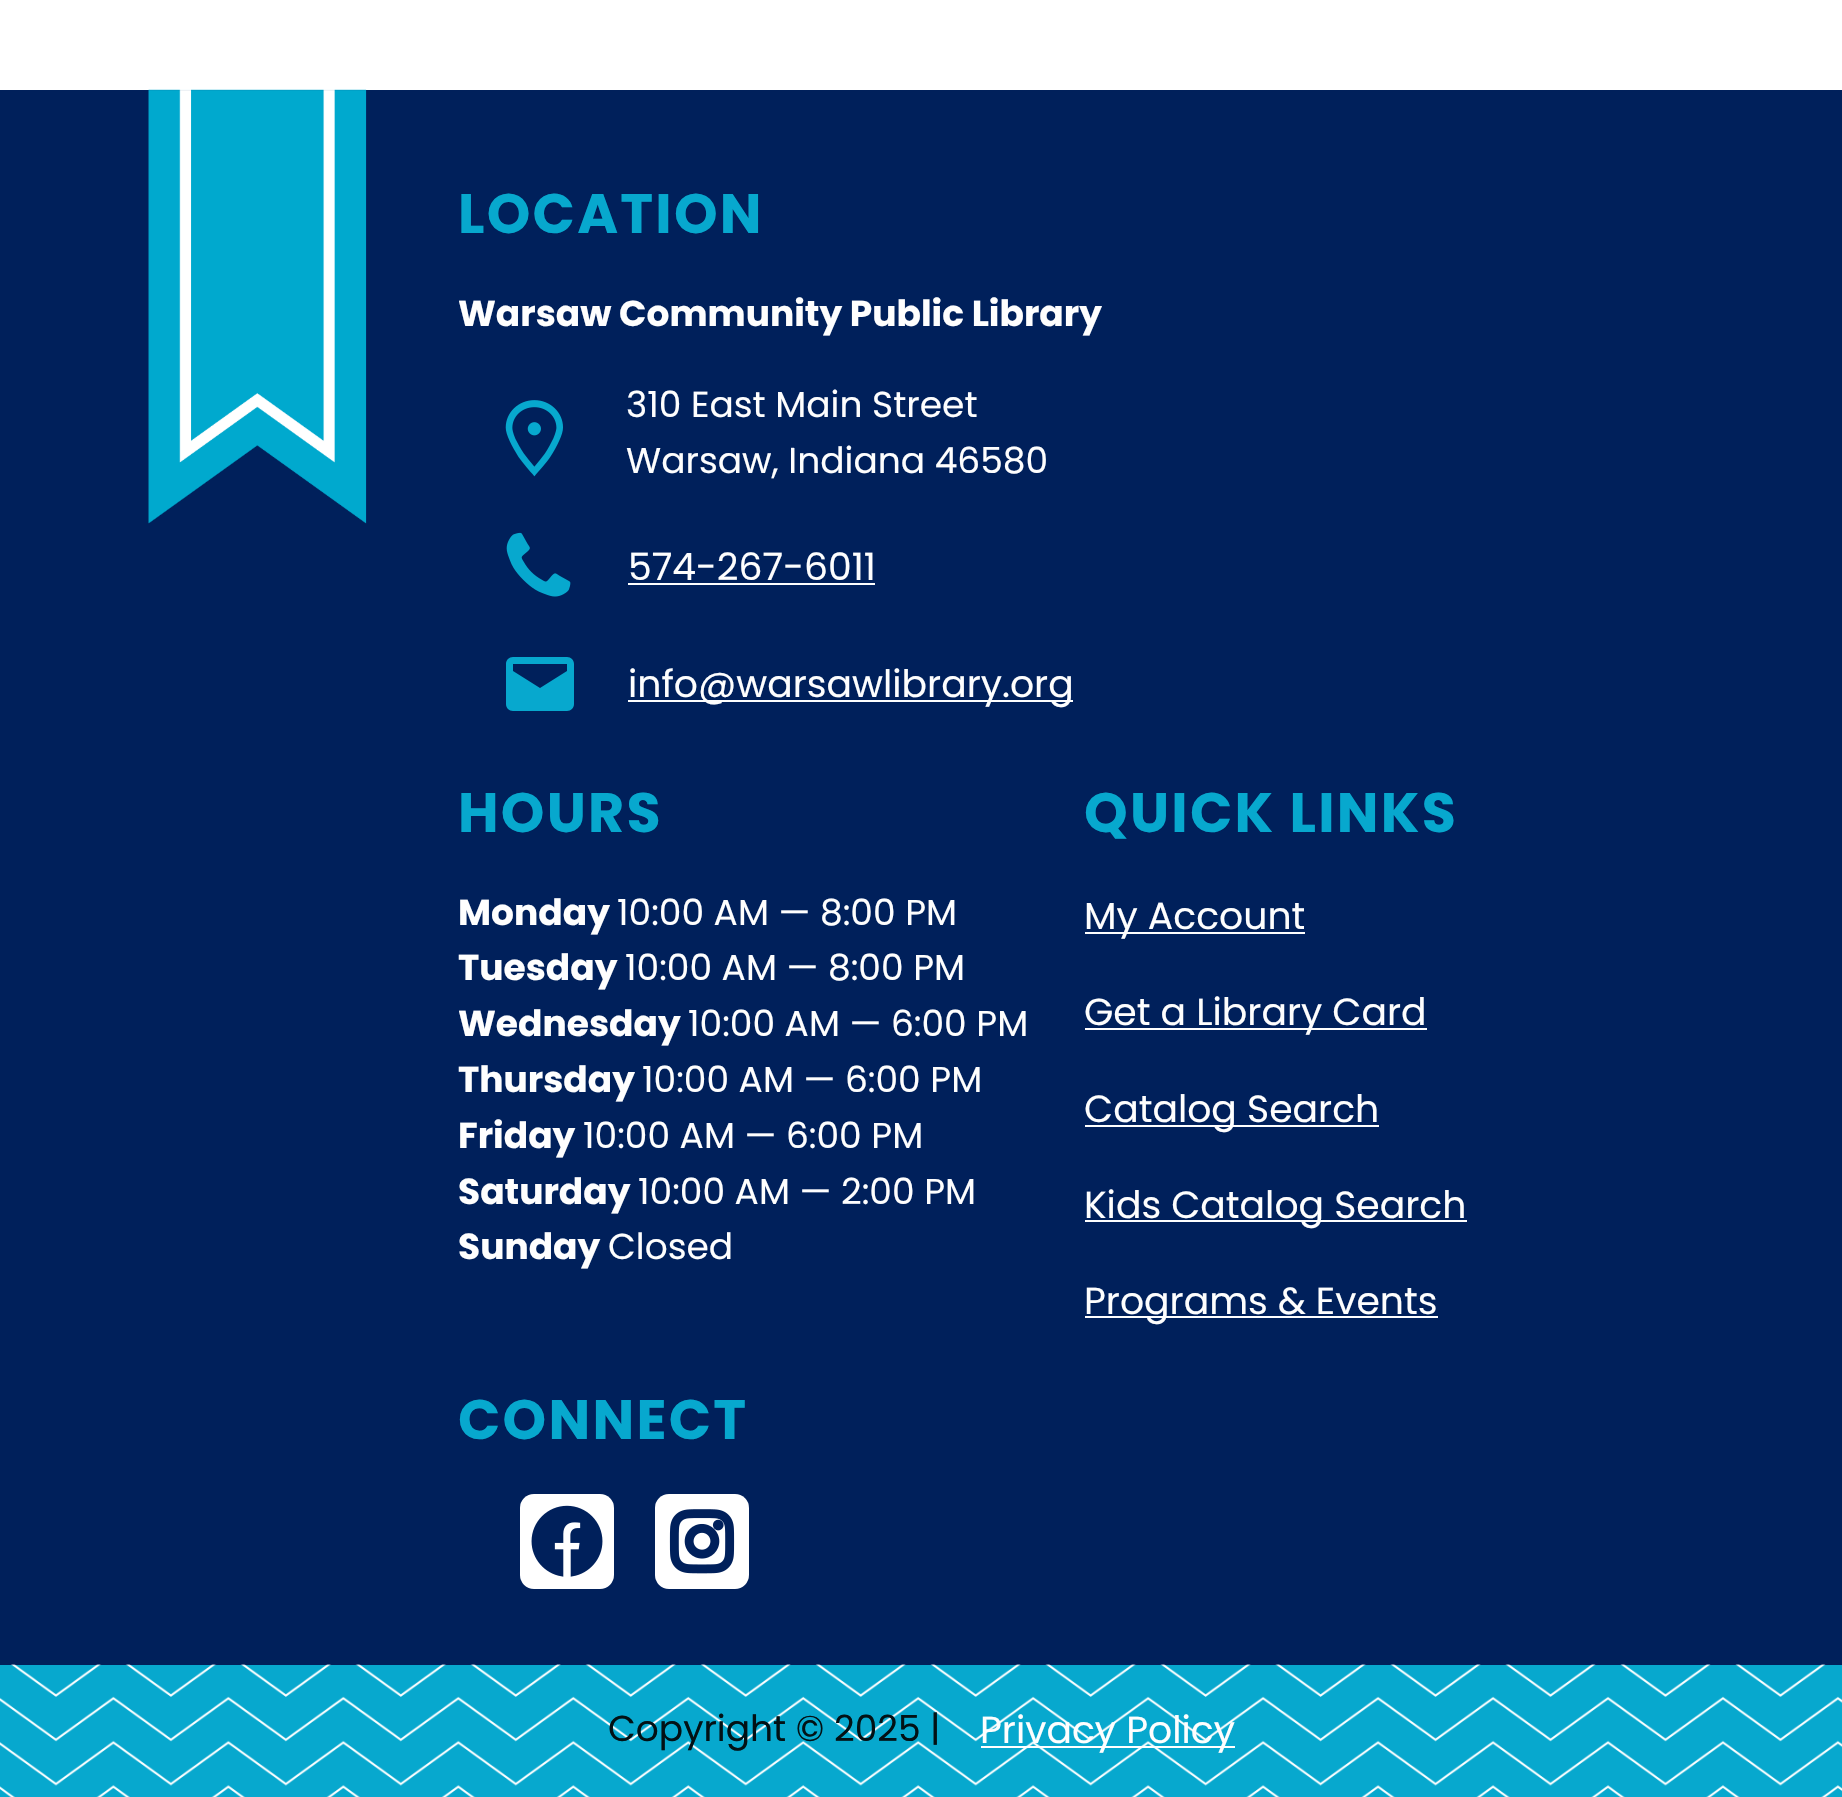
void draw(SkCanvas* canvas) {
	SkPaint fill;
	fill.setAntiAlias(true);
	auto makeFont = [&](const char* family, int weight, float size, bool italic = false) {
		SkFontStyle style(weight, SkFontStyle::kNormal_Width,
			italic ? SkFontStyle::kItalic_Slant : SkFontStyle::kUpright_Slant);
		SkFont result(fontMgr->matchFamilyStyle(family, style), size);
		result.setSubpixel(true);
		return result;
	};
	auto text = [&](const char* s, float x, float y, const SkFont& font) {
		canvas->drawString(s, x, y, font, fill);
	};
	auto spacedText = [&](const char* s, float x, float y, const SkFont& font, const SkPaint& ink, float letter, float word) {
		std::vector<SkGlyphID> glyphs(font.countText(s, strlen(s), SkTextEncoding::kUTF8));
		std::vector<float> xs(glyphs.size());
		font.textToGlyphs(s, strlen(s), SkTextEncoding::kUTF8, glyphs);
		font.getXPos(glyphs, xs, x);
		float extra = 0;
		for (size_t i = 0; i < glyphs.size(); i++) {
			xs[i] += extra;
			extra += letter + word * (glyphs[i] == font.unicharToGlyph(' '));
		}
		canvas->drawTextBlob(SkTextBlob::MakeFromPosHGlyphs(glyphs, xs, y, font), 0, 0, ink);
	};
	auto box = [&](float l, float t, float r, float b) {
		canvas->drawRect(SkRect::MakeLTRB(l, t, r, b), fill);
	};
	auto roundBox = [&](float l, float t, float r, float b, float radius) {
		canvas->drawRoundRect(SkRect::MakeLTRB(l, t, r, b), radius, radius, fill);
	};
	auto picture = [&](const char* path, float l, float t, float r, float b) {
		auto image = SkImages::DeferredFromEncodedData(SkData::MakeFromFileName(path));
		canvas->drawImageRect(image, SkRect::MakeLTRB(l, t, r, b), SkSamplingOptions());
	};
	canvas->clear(0xFFFFFFFF);
	fill.setColor(0xFF00205B);
	box(0, 90, 1842, 1665);
	picture("image0.png", 148, 89, 367, 524);
	picture("image1.png", 505, 400, 563, 477);
	picture("image2.png", 506, 532, 571, 597);
	fill.setColor(0xFFFEFEFE);
	box(628, 583, 875, 585);
	fill.setColor(0xFF07A8CE);
	canvas->drawPath(SkPathBuilder().moveTo(567, 657).lineTo(513, 657).cubicTo(509, 657, 506, 660, 506, 664).lineTo(506, 704).cubicTo(506, 708, 509, 711, 513, 711).lineTo(567, 711).cubicTo(571, 711, 574, 708, 574, 704).lineTo(574, 664).cubicTo(574, 660, 571, 657, 567, 657).close().moveTo(567, 671).lineTo(540, 688).lineTo(513, 671).lineTo(513, 664).lineTo(567, 664).close().detach(), fill);
	fill.setColor(0xFFFEFEFE);
	box(628, 700, 1073, 702);
	box(1085, 932, 1305, 934);
	box(1085, 1028, 1427, 1030);
	box(1085, 1125, 1379, 1127);
	box(1085, 1220, 1467, 1222);
	box(1085, 1316, 1438, 1318);
	fill.setColor(0xFFFFFFFF);
	roundBox(520, 1494, 614, 1589, 14);
	picture("image3.png", 531, 1505, 603, 1577);
	roundBox(655, 1494, 749, 1589, 14);
	picture("image4.png", 669, 1509, 735, 1574);
	fill.setColor(0xFF07A8CE);
	box(0, 1665, 1842, 1797);
	picture("image5.png", 0, 1664, 1842, 1797);
	fill.setColor(0xFFFFFFFF);
	box(981, 1746, 1235, 1748);
	auto font1 = makeFont("Poppins", 700, 55.5f);
	fill.setColor(0xFF07A8CE);
	spacedText("LOCATION", 458, 233, font1, fill, 2.25f, 0);
	auto font2 = makeFont("Poppins", 700, 36);
	fill.setColor(0xFFFEFEFE);
	text("Warsaw Community Public Library", 458, 326, font2);
	auto font3 = makeFont("Poppins", 400, 36);
	text("310 East Main Street", 626, 417, font3);
	text("Warsaw, Indiana 46580", 626, 473, font3);
	auto font4 = makeFont("Poppins", 400, 37.75f);
	text("574-267-6011", 628, 580, font4);
	text("info@warsawlibrary.org", 628, 697, font4);
	fill.setColor(0xFF07A8CE);
	spacedText("HOURS", 458, 832, font1, fill, 2.25f, 0);
	fill.setColor(0xFFFEFEFE);
	text("Monday", 458, 925, font2);
	text("10:00 AM — 8:00 PM", 617, 925, font3);
	text("Tuesday", 458, 980, font2);
	text("10:00 AM — 8:00 PM", 625, 980, font3);
	text("Wednesday", 458, 1036, font2);
	text("10:00 AM — 6:00 PM", 688, 1036, font3);
	text("Thursday", 458, 1092, font2);
	text("10:00 AM — 6:00 PM", 642, 1092, font3);
	text("Friday", 458, 1148, font2);
	text("10:00 AM — 6:00 PM", 583, 1148, font3);
	text("Saturday", 458, 1204, font2);
	text("10:00 AM — 2:00 PM", 638, 1204, font3);
	text("Sunday", 458, 1259, font2);
	text("Closed", 608, 1259, font3);
	fill.setColor(0xFF07A8CE);
	spacedText("QUICK LINKS", 1084, 832, font1, fill, 2.25f, 0);
	fill.setColor(0xFFFEFEFE);
	text("My Account", 1084, 929, font4);
	text("Get a Library Card", 1084, 1025, font4);
	text("Catalog Search", 1084, 1122, font4);
	text("Kids Catalog Search", 1084, 1218, font4);
	text("Programs & Events", 1084, 1314, font4);
	fill.setColor(0xFF07A8CE);
	spacedText("CONNECT", 458, 1439, font1, fill, 2.25f, 0);
	fill.setColor(0xFF021115);
	text("Copyright © 2025", 608, 1741, font3);
	text("|", 930, 1741, font3);
	fill.setColor(0xFFFEFEFE);
	text("Privacy Policy", 980, 1743, font4);
}
